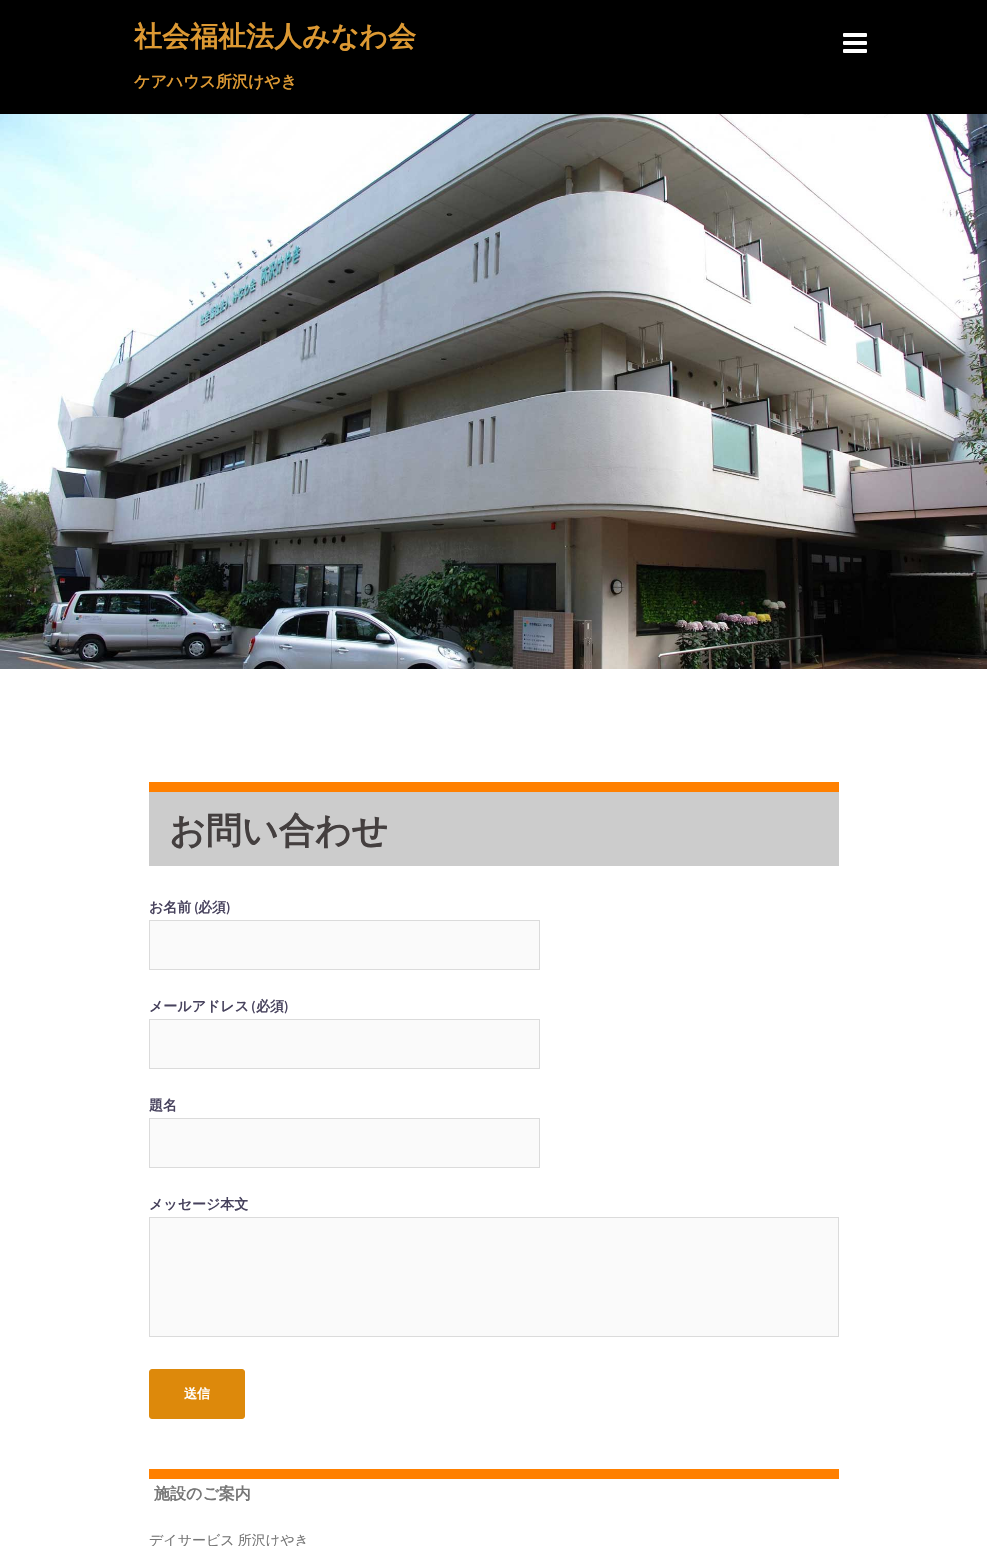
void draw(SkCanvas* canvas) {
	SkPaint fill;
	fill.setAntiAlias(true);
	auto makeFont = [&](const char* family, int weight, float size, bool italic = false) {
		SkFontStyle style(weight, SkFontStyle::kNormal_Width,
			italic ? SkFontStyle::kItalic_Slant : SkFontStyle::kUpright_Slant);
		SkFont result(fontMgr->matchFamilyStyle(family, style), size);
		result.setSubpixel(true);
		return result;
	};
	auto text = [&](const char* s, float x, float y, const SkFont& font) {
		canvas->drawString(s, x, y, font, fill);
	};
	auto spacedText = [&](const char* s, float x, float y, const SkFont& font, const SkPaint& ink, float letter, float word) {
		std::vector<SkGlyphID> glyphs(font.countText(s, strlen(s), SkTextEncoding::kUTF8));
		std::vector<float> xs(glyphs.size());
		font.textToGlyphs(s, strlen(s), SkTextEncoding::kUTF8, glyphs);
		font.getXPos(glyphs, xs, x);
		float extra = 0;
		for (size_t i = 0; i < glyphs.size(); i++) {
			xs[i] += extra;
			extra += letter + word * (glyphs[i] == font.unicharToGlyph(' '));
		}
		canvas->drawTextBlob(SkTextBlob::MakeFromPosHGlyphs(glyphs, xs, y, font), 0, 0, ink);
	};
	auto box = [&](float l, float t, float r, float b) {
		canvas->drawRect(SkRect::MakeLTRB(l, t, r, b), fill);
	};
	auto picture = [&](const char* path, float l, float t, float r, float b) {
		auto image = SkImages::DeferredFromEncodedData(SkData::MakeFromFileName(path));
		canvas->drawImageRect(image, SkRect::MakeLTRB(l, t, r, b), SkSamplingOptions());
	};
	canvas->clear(0xFFFFFFFF);
	fill.setColor(0xFF000000);
	box(0, 0, 987, 114);
	picture("image0.png", 843, 33, 867, 53);
	picture("image1.png", 0, 114, 987, 669);
	fill.setColor(0xFFCCCCCC);
	box(149, 792, 839, 866);
	fill.setColor(0xFFFF8000);
	box(149, 782, 839, 792);
	fill.setColor(0xFFFAFAFA);
	canvas->drawRect(SkRect::MakeLTRB(149.5f, 920.5f, 539.5f, 969.5f), fill);
	fill.setStyle(SkPaint::kStroke_Style);
	fill.setStrokeWidth(1);
	fill.setColor(0xFFDBDBDB);
	canvas->drawRect(SkRect::MakeLTRB(149.5f, 920.5f, 539.5f, 969.5f), fill);
	fill.setStyle(SkPaint::kFill_Style);
	fill.setColor(0xFFFAFAFA);
	canvas->drawRect(SkRect::MakeLTRB(149.5f, 1019.5f, 539.5f, 1068.5f), fill);
	fill.setStyle(SkPaint::kStroke_Style);
	fill.setColor(0xFFDBDBDB);
	canvas->drawRect(SkRect::MakeLTRB(149.5f, 1019.5f, 539.5f, 1068.5f), fill);
	fill.setStyle(SkPaint::kFill_Style);
	fill.setColor(0xFFFAFAFA);
	canvas->drawRect(SkRect::MakeLTRB(149.5f, 1118.5f, 539.5f, 1167.5f), fill);
	fill.setStyle(SkPaint::kStroke_Style);
	fill.setColor(0xFFDBDBDB);
	canvas->drawRect(SkRect::MakeLTRB(149.5f, 1118.5f, 539.5f, 1167.5f), fill);
	fill.setStyle(SkPaint::kFill_Style);
	fill.setColor(0xFFFAFAFA);
	canvas->drawRect(SkRect::MakeLTRB(149.5f, 1217.5f, 838.5f, 1336.5f), fill);
	fill.setStyle(SkPaint::kStroke_Style);
	fill.setColor(0xFFDBDBDB);
	canvas->drawRect(SkRect::MakeLTRB(149.5f, 1217.5f, 838.5f, 1336.5f), fill);
	fill.setStyle(SkPaint::kFill_Style);
	fill.setColor(0xFFDD890B);
	canvas->drawRoundRect(SkRect::MakeLTRB(149.5f, 1369.5f, 244.5f, 1418.5f), 2.5f, 2.5f, fill);
	fill.setStyle(SkPaint::kStroke_Style);
	canvas->drawRoundRect(SkRect::MakeLTRB(149.5f, 1369.5f, 244.5f, 1418.5f), 2.5f, 2.5f, fill);
	fill.setStyle(SkPaint::kFill_Style);
	fill.setColor(0xFFFF8000);
	box(149, 1469, 839, 1479);
	auto font1 = makeFont("WenQuanYi Zen Hei", 700, 28);
	fill.setColor(0xFFDD9933);
	text("社会福祉法人みなわ会", 134, 46, font1);
	auto font2 = makeFont("WenQuanYi Zen Hei", 700, 16);
	text("ケアハウス所沢けやき", 134, 87, font2);
	auto font3 = makeFont("WenQuanYi Zen Hei", 700, 36);
	fill.setColor(0xFF443F3F);
	text("お問い合わせ", 169, 843, font3);
	auto font4 = makeFont("WenQuanYi Zen Hei", 700, 14);
	fill.setColor(0xFF47425D);
	text("お名前", 149, 912, font4);
	auto font5 = makeFont("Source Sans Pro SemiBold", 600, 14);
	text("(", 194, 912, font5);
	text("必須", 198, 912, font4);
	text(")", 226, 912, font5);
	text("メールアドレス", 149, 1011, font4);
	text("(", 251, 1011, font5);
	text("必須", 256, 1011, font4);
	text(")", 284, 1011, font5);
	text("題名", 149, 1110, font4);
	text("メッセージ本文", 149, 1209, font4);
	auto font6 = makeFont("WenQuanYi Zen Hei", 700, 13);
	fill.setColor(0xFFFFFFFF);
	text("送信", 184, 1398, font6);
	fill.setColor(0xFF767676);
	text("施設のご案内", 154, 1499, font2);
	auto font7 = makeFont("WenQuanYi Zen Hei", 500, 14);
	spacedText("デイサービス 所沢けやき", 149, 1545, font7, fill, 0, -1);
}
